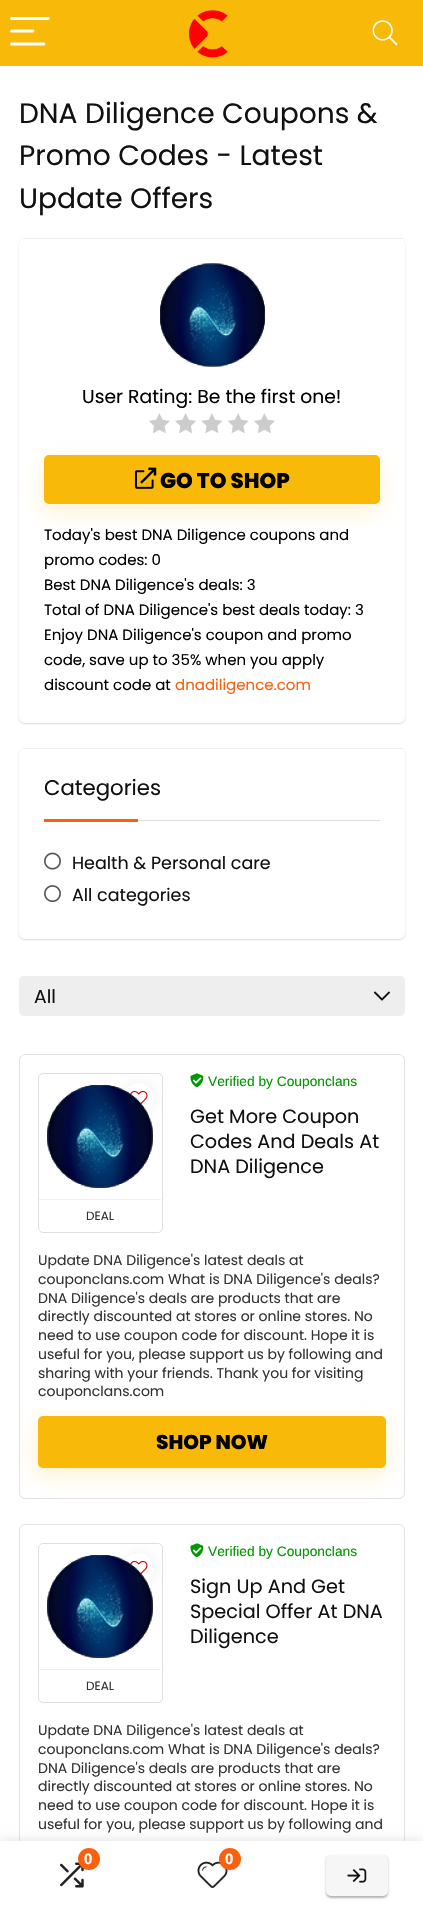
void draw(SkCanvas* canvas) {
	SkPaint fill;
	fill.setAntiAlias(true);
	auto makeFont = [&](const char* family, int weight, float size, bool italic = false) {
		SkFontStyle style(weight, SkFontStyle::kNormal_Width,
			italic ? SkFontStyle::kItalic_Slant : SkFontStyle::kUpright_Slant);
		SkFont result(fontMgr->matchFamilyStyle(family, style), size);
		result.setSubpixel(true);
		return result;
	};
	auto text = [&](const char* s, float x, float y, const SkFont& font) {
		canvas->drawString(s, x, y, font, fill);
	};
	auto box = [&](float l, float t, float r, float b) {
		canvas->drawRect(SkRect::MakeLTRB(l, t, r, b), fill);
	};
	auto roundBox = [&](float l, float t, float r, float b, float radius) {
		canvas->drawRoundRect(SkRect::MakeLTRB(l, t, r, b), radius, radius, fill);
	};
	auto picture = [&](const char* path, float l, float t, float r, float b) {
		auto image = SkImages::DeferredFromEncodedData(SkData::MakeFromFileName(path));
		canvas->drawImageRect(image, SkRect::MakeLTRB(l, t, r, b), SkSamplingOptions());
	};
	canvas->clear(0xFFFFFFFF);
	fill.setColor(0x26000000);
	fill.setMaskFilter(SkMaskFilter::MakeBlur(kNormal_SkBlurStyle, 1));
	canvas->drawRoundRect(SkRect::MakeLTRB(19, 239, 405, 724), 6, 6, fill);
	fill.setMaskFilter(nullptr);
	fill.setColor(0xFFFFFFFF);
	roundBox(19, 238, 405, 723, 6);
	fill.setColor(0xFFEFEFEF);
	box(23, 238, 403, 239);
	picture("image0.png", 160, 263, 265, 367);
	picture("image1.png", 149, 413, 170, 434);
	picture("image2.png", 175, 413, 196, 434);
	picture("image3.png", 201, 413, 223, 434);
	picture("image4.png", 227, 413, 249, 434);
	picture("image1.png", 254, 413, 275, 434);
	fill.setColor(0x33F9B909);
	fill.setMaskFilter(SkMaskFilter::MakeBlur(kNormal_SkBlurStyle, 12));
	canvas->drawRoundRect(SkRect::MakeLTRB(43, 463, 379, 511), 5, 5, fill);
	fill.setMaskFilter(nullptr);
	fill.setColor(0xFFF9B909);
	roundBox(44, 455, 380, 504, 5);
	picture("image5.png", 135, 467, 157, 489);
	fill.setColor(0x26000000);
	fill.setMaskFilter(SkMaskFilter::MakeBlur(kNormal_SkBlurStyle, 1));
	canvas->drawRoundRect(SkRect::MakeLTRB(19, 749, 405, 940), 6, 6, fill);
	fill.setMaskFilter(nullptr);
	fill.setColor(0xFFFFFFFF);
	roundBox(19, 748, 405, 939, 6);
	fill.setColor(0xFFEFEFEF);
	box(23, 748, 403, 749);
	fill.setColor(0xFFDDDDDD);
	box(138, 820, 380, 821);
	fill.setColor(0xFFF9610E);
	box(44, 819, 138, 822);
	picture("image6.png", 44, 852, 61, 870);
	picture("image7.png", 44, 885, 61, 903);
	fill.setColor(0xFFEEEEEE);
	roundBox(19, 976, 405, 1016, 5);
	picture("image8.png", 373, 991, 390, 1001);
	fill.setStyle(SkPaint::kStroke_Style);
	fill.setStrokeWidth(1);
	fill.setColor(0xFFE3E3E3);
	canvas->drawRoundRect(SkRect::MakeLTRB(19.5f, 1054.5f, 404.5f, 1498.5f), 5.5f, 5.5f, fill);
	picture("image9.png", 190, 1073, 204, 1088);
	fill.setColor(0xFFDCE0E0);
	canvas->drawRoundRect(SkRect::MakeLTRB(38.5f, 1073.5f, 162.5f, 1232.5f), 4.5f, 4.5f, fill);
	fill.setStyle(SkPaint::kFill_Style);
	fill.setColor(0xFFEFEFEF);
	fill.setMaskFilter(SkMaskFilter::MakeBlur(kNormal_SkBlurStyle, 6));
	canvas->drawRoundRect(SkRect::MakeLTRB(123, 1083, 154, 1114), 15.5f, 15.5f, fill);
	fill.setMaskFilter(nullptr);
	fill.setColor(0xFFFFFFFF);
	canvas->drawCircle(138.5f, 1098.5f, 15.5f, fill);
	picture("image10.png", 130, 1090, 148, 1105);
	picture("image11.png", 47, 1085, 153, 1188);
	fill.setColor(0xFFF0F0F0);
	box(39, 1199, 161, 1200);
	fill.setColor(0x33F9B909);
	fill.setMaskFilter(SkMaskFilter::MakeBlur(kNormal_SkBlurStyle, 12));
	canvas->drawRoundRect(SkRect::MakeLTRB(36, 1424, 385, 1475), 5, 5, fill);
	fill.setMaskFilter(nullptr);
	fill.setColor(0xFFF9B909);
	roundBox(38, 1416, 386, 1468, 5);
	fill.setStyle(SkPaint::kStroke_Style);
	fill.setColor(0xFFE3E3E3);
	canvas->drawRoundRect(SkRect::MakeLTRB(19.5f, 1524.5f, 404.5f, 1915.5f), 5.5f, 5.5f, fill);
	picture("image9.png", 190, 1543, 204, 1558);
	fill.setColor(0xFFDCE0E0);
	canvas->drawRoundRect(SkRect::MakeLTRB(38.5f, 1543.5f, 162.5f, 1702.5f), 4.5f, 4.5f, fill);
	fill.setStyle(SkPaint::kFill_Style);
	fill.setColor(0xFFEFEFEF);
	fill.setMaskFilter(SkMaskFilter::MakeBlur(kNormal_SkBlurStyle, 6));
	canvas->drawRoundRect(SkRect::MakeLTRB(123, 1553, 154, 1584), 15.5f, 15.5f, fill);
	fill.setMaskFilter(nullptr);
	fill.setColor(0xFFFFFFFF);
	canvas->drawCircle(138.5f, 1568.5f, 15.5f, fill);
	picture("image10.png", 130, 1560, 148, 1575);
	picture("image11.png", 47, 1555, 153, 1658);
	fill.setColor(0xFFF0F0F0);
	box(39, 1669, 161, 1670);
	fill.setColor(0xFFF9B909);
	box(0, 0, 423, 66);
	fill.setStyle(SkPaint::kStroke_Style);
	fill.setStrokeWidth(2.8f);
	fill.setStrokeCap(SkPaint::kRound_Cap);
	fill.setColor(0xFFFFFFFF);
	canvas->drawPath(SkPathBuilder().moveTo(11.5f, 18.5f).lineTo(48.5f, 18.5f).moveTo(11.5f, 31).lineTo(33, 31).moveTo(11.5f, 44).lineTo(44, 44).detach(), fill);
	picture("image12.png", 188, 10, 228, 58);
	picture("image13.png", 372, 20, 398, 46);
	fill.setStyle(SkPaint::kFill_Style);
	fill.setColor(0x1F000000);
	fill.setMaskFilter(SkMaskFilter::MakeBlur(kNormal_SkBlurStyle, 5.5f));
	canvas->drawRect(SkRect::MakeLTRB(0, 1841, 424, 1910), fill);
	fill.setMaskFilter(nullptr);
	fill.setColor(0xFFFFFFFF);
	box(0, 1841, 423, 1909);
	picture("image14.png", 60, 1862, 84, 1888);
	fill.setColor(0xFFF9610E);
	canvas->drawCircle(89, 1859, 11, fill);
	picture("image15.png", 197, 1861, 228, 1888);
	canvas->drawCircle(230, 1859, 11, fill);
	fill.setColor(0x14000000);
	fill.setMaskFilter(SkMaskFilter::MakeBlur(kNormal_SkBlurStyle, 1));
	canvas->drawRoundRect(SkRect::MakeLTRB(326, 1856, 388, 1898), 5, 5, fill);
	fill.setMaskFilter(nullptr);
	fill.setColor(0x4D3C4043);
	fill.setMaskFilter(SkMaskFilter::MakeBlur(kNormal_SkBlurStyle, 1));
	canvas->drawRoundRect(SkRect::MakeLTRB(326, 1856, 388, 1898), 5, 5, fill);
	fill.setMaskFilter(nullptr);
	fill.setColor(0xFFF6F6F6);
	roundBox(326, 1855, 388, 1896, 5);
	picture("image16.png", 347, 1868, 367, 1883);
	auto font1 = makeFont("Poppins", 400, 28.1f);
	fill.setColor(0xFF111111);
	text("DNA Diligence Coupons &", 19, 123, font1);
	text("Promo Codes - Latest", 19, 165, font1);
	text("Update Offers", 19, 208, font1);
	auto font2 = makeFont("Poppins", 400, 18.75f);
	fill.setColor(0xFF000000);
	text("User Rating: Be the first one!", 82, 403, font2);
	auto font3 = makeFont("Poppins", 800, 21.25f);
	text("GO TO SHOP", 160, 488, font3);
	auto font4 = makeFont("Poppins", 400, 15);
	text("Today's best DNA Diligence coupons and", 44, 540, font4);
	text("promo codes: 0", 44, 565, font4);
	text("Best DNA Diligence's deals: 3", 44, 590, font4);
	text("Total of DNA Diligence's best deals today: 3", 44, 615, font4);
	text("Enjoy DNA Diligence's coupon and promo", 44, 640, font4);
	text("code, save up to 35% when you apply", 44, 665, font4);
	text("discount code at", 44, 690, font4);
	fill.setColor(0xFFF9610E);
	text("dnadiligence.com", 175, 690, font4);
	auto font5 = makeFont("Poppins", 400, 21.25f);
	fill.setColor(0xFF111111);
	text("Categories", 44, 795, font5);
	auto font6 = makeFont("Poppins", 400, 17.5f);
	text("Health & Personal care", 72, 869, font6);
	text("All categories", 72, 901, font6);
	text("All", 34, 1003, font2);
	auto font7 = makeFont("Liberation Sans", 400, 13.75f);
	fill.setColor(0xFF009700);
	text("Verified by Couponclans", 208, 1086, font7);
	auto font8 = makeFont("Poppins", 400, 19.25f);
	fill.setColor(0xFF111111);
	text("Get More Coupon", 190, 1123, font8);
	text("Codes And Deals At", 190, 1148, font8);
	text("DNA Diligence", 190, 1173, font8);
	auto font9 = makeFont("Poppins", 400, 12);
	fill.setColor(0xFF333333);
	text("DEAL", 86, 1220, font9);
	auto font10 = makeFont("Poppins", 400, 14);
	text("Update DNA Diligence's latest deals at", 38, 1265, font10);
	text("couponclans.com What is DNA Diligence's deals?", 38, 1284, font10);
	text("DNA Diligence's deals are products that are", 38, 1303, font10);
	text("directly discounted at stores or online stores. No", 38, 1321, font10);
	text("need to use coupon code for discount. Hope it is", 38, 1340, font10);
	text("useful for you, please support us by following and", 38, 1359, font10);
	text("sharing with your friends. Thank you for visiting", 38, 1378, font10);
	text("couponclans.com", 38, 1396, font10);
	auto font11 = makeFont("Poppins", 800, 20);
	fill.setColor(0xFF000000);
	text("SHOP NOW", 156, 1449, font11);
	fill.setColor(0xFF009700);
	text("Verified by Couponclans", 208, 1556, font7);
	fill.setColor(0xFF111111);
	text("Sign Up And Get", 190, 1593, font8);
	text("Special Offer At DNA", 190, 1618, font8);
	text("Diligence", 190, 1643, font8);
	fill.setColor(0xFF333333);
	text("DEAL", 86, 1690, font9);
	text("Update DNA Diligence's latest deals at", 38, 1735, font10);
	text("couponclans.com What is DNA Diligence's deals?", 38, 1754, font10);
	text("DNA Diligence's deals are products that are", 38, 1773, font10);
	text("directly discounted at stores or online stores. No", 38, 1791, font10);
	text("need to use coupon code for discount. Hope it is", 38, 1810, font10);
	text("useful for you, please support us by following and", 38, 1829, font10);
	auto font12 = makeFont("Liberation Sans", 700, 15);
	fill.setColor(0xFFFFFFFF);
	text("0", 84, 1864, font12);
	text("0", 225, 1864, font12);
}
